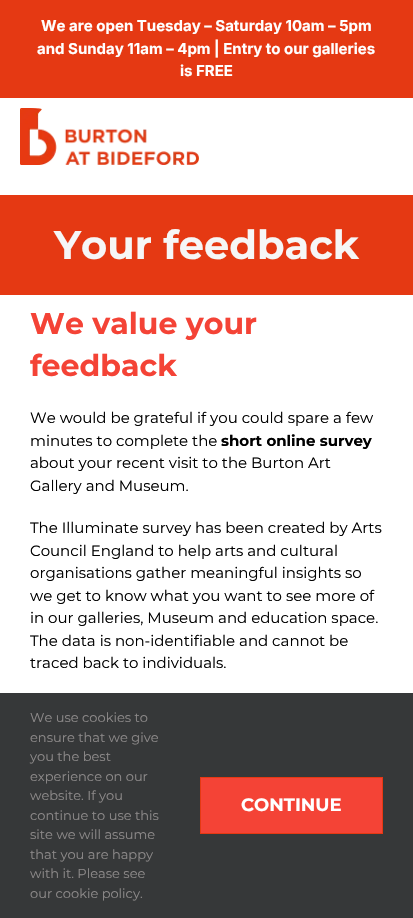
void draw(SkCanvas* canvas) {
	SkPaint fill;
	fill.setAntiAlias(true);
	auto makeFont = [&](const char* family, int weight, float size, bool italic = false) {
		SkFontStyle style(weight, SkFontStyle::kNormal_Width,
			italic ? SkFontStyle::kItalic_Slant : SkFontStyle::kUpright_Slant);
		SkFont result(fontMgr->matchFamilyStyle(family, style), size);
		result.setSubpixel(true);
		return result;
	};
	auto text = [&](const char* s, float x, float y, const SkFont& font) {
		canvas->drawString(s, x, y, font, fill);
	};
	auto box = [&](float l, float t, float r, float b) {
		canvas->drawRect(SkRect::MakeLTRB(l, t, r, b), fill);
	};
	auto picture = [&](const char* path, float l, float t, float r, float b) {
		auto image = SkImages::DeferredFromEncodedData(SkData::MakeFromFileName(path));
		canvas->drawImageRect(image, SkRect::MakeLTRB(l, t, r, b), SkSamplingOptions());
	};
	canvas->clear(0xFFFFFFFF);
	fill.setColor(0xFFE53913);
	box(0, 0, 413, 98);
	picture("image0.png", 20, 108, 199, 165);
	box(0, 195, 413, 295);
	fill.setColor(0xFF363839);
	box(0, 693, 413, 918);
	fill.setColor(0xFFF44336);
	canvas->drawRect(SkRect::MakeLTRB(200.5f, 777.5f, 382.5f, 833.5f), fill);
	fill.setStyle(SkPaint::kStroke_Style);
	fill.setStrokeWidth(1);
	fill.setColor(0xFFE53913);
	canvas->drawRect(SkRect::MakeLTRB(200.5f, 777.5f, 382.5f, 833.5f), fill);
	auto font1 = makeFont("Inter", 700, 15);
	fill.setStyle(SkPaint::kFill_Style);
	fill.setColor(0xFFFFFFFF);
	text("We are open Tuesday – Saturday 10am – 5pm", 41, 31, font1);
	text("and Sunday 11am – 4pm | Entry to our galleries", 37, 54, font1);
	text("is FREE", 180, 76, font1);
	auto font2 = makeFont("Montserrat", 700, 40);
	fill.setColor(0xFFF6F6F6);
	text("Your feedback", 54, 259, font2);
	auto font3 = makeFont("Montserrat", 700, 30);
	fill.setColor(0xFFF44336);
	text("We value your", 30, 334, font3);
	text("feedback", 30, 376, font3);
	auto font4 = makeFont("Montserrat", 400, 15);
	fill.setColor(0xFF000000);
	text("We would be grateful if you could spare a few", 30, 423, font4);
	text("minutes to complete the", 30, 446, font4);
	auto font5 = makeFont("Montserrat", 700, 15);
	text("short online survey", 221, 446, font5);
	text("about your recent visit to the Burton Art", 30, 468, font4);
	text("Gallery and Museum.", 30, 491, font4);
	text("The Illuminate survey has been created by Arts", 30, 533, font4);
	text("Council England to help arts and cultural", 30, 556, font4);
	text("organisations gather meaningful insights so", 30, 578, font4);
	text("we get to know what you want to see more of", 30, 601, font4);
	text("in our galleries, Museum and education space.", 30, 623, font4);
	text("The data is non-identifiable and cannot be", 30, 646, font4);
	text("traced back to individuals.", 30, 668, font4);
	auto font6 = makeFont("Montserrat", 400, 13);
	fill.setColor(0xFF8C8989);
	text("We use cookies to", 30, 722, font6);
	text("ensure that we give", 30, 742, font6);
	text("you the best", 30, 761, font6);
	text("experience on our", 30, 781, font6);
	text("website. If you", 30, 800, font6);
	text("continue to use this", 30, 820, font6);
	text("site we will assume", 30, 839, font6);
	text("that you are happy", 30, 859, font6);
	text("with it. Please see", 30, 878, font6);
	text("our cookie policy.", 30, 898, font6);
	auto font7 = makeFont("Montserrat", 700, 18);
	fill.setColor(0xFFFFFFFF);
	text("CONTINUE", 241, 811, font7);
}
